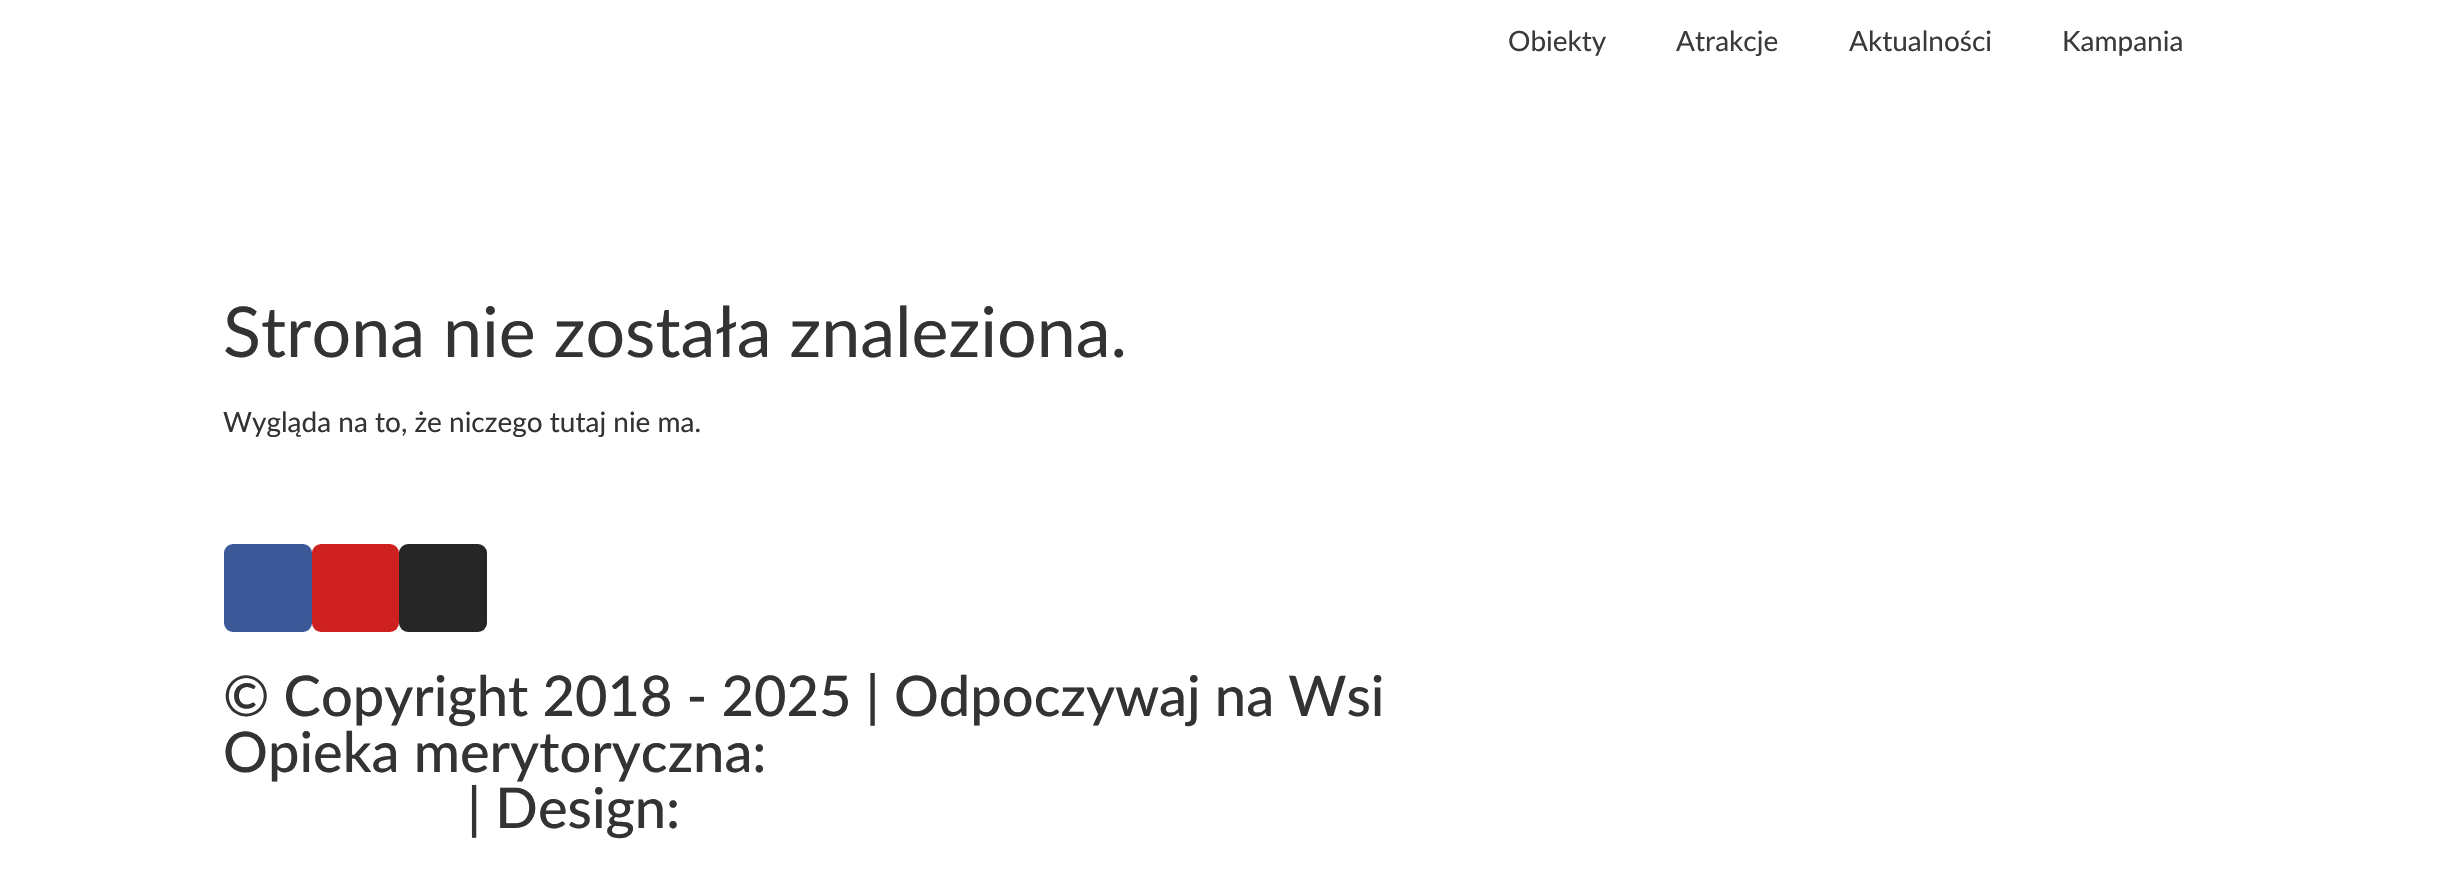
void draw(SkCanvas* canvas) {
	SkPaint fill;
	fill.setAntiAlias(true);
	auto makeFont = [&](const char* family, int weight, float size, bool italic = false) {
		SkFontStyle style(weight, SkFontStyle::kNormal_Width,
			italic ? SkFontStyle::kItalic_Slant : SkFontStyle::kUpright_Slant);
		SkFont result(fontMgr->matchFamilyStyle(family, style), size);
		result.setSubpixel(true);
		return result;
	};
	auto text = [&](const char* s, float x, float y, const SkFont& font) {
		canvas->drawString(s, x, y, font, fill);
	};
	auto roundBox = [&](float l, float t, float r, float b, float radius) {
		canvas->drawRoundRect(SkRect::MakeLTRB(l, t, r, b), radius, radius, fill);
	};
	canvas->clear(0xFFFFFFFF);
	fill.setColor(0xFF3B5998);
	roundBox(224, 544, 312, 632, 9);
	fill.setColor(0xFFCD201F);
	roundBox(312, 544, 399, 632, 9);
	fill.setColor(0xFF262626);
	roundBox(399, 544, 487, 632, 9);
	auto font1 = makeFont("Lato", 400, 28);
	fill.setColor(0xFF3A3A3A);
	text("Obiekty", 1508, 51, font1);
	text("Atrakcje", 1676, 51, font1);
	text("Aktualności", 1849, 51, font1);
	text("Kampania", 2062, 51, font1);
	auto font2 = makeFont("Lato", 400, 70);
	fill.setColor(0xFF333333);
	text("Strona nie została znaleziona.", 223, 357, font2);
	text("Wygląda na to, że niczego tutaj nie ma.", 223, 432, font1);
	auto font3 = makeFont("Lato", 500, 56);
	text("© Copyright 2018 - 2025 | Odpoczywaj na Wsi", 223, 716, font3);
	text("Opieka merytoryczna:", 223, 772, font3);
	text("| Design:", 467, 828, font3);
}
